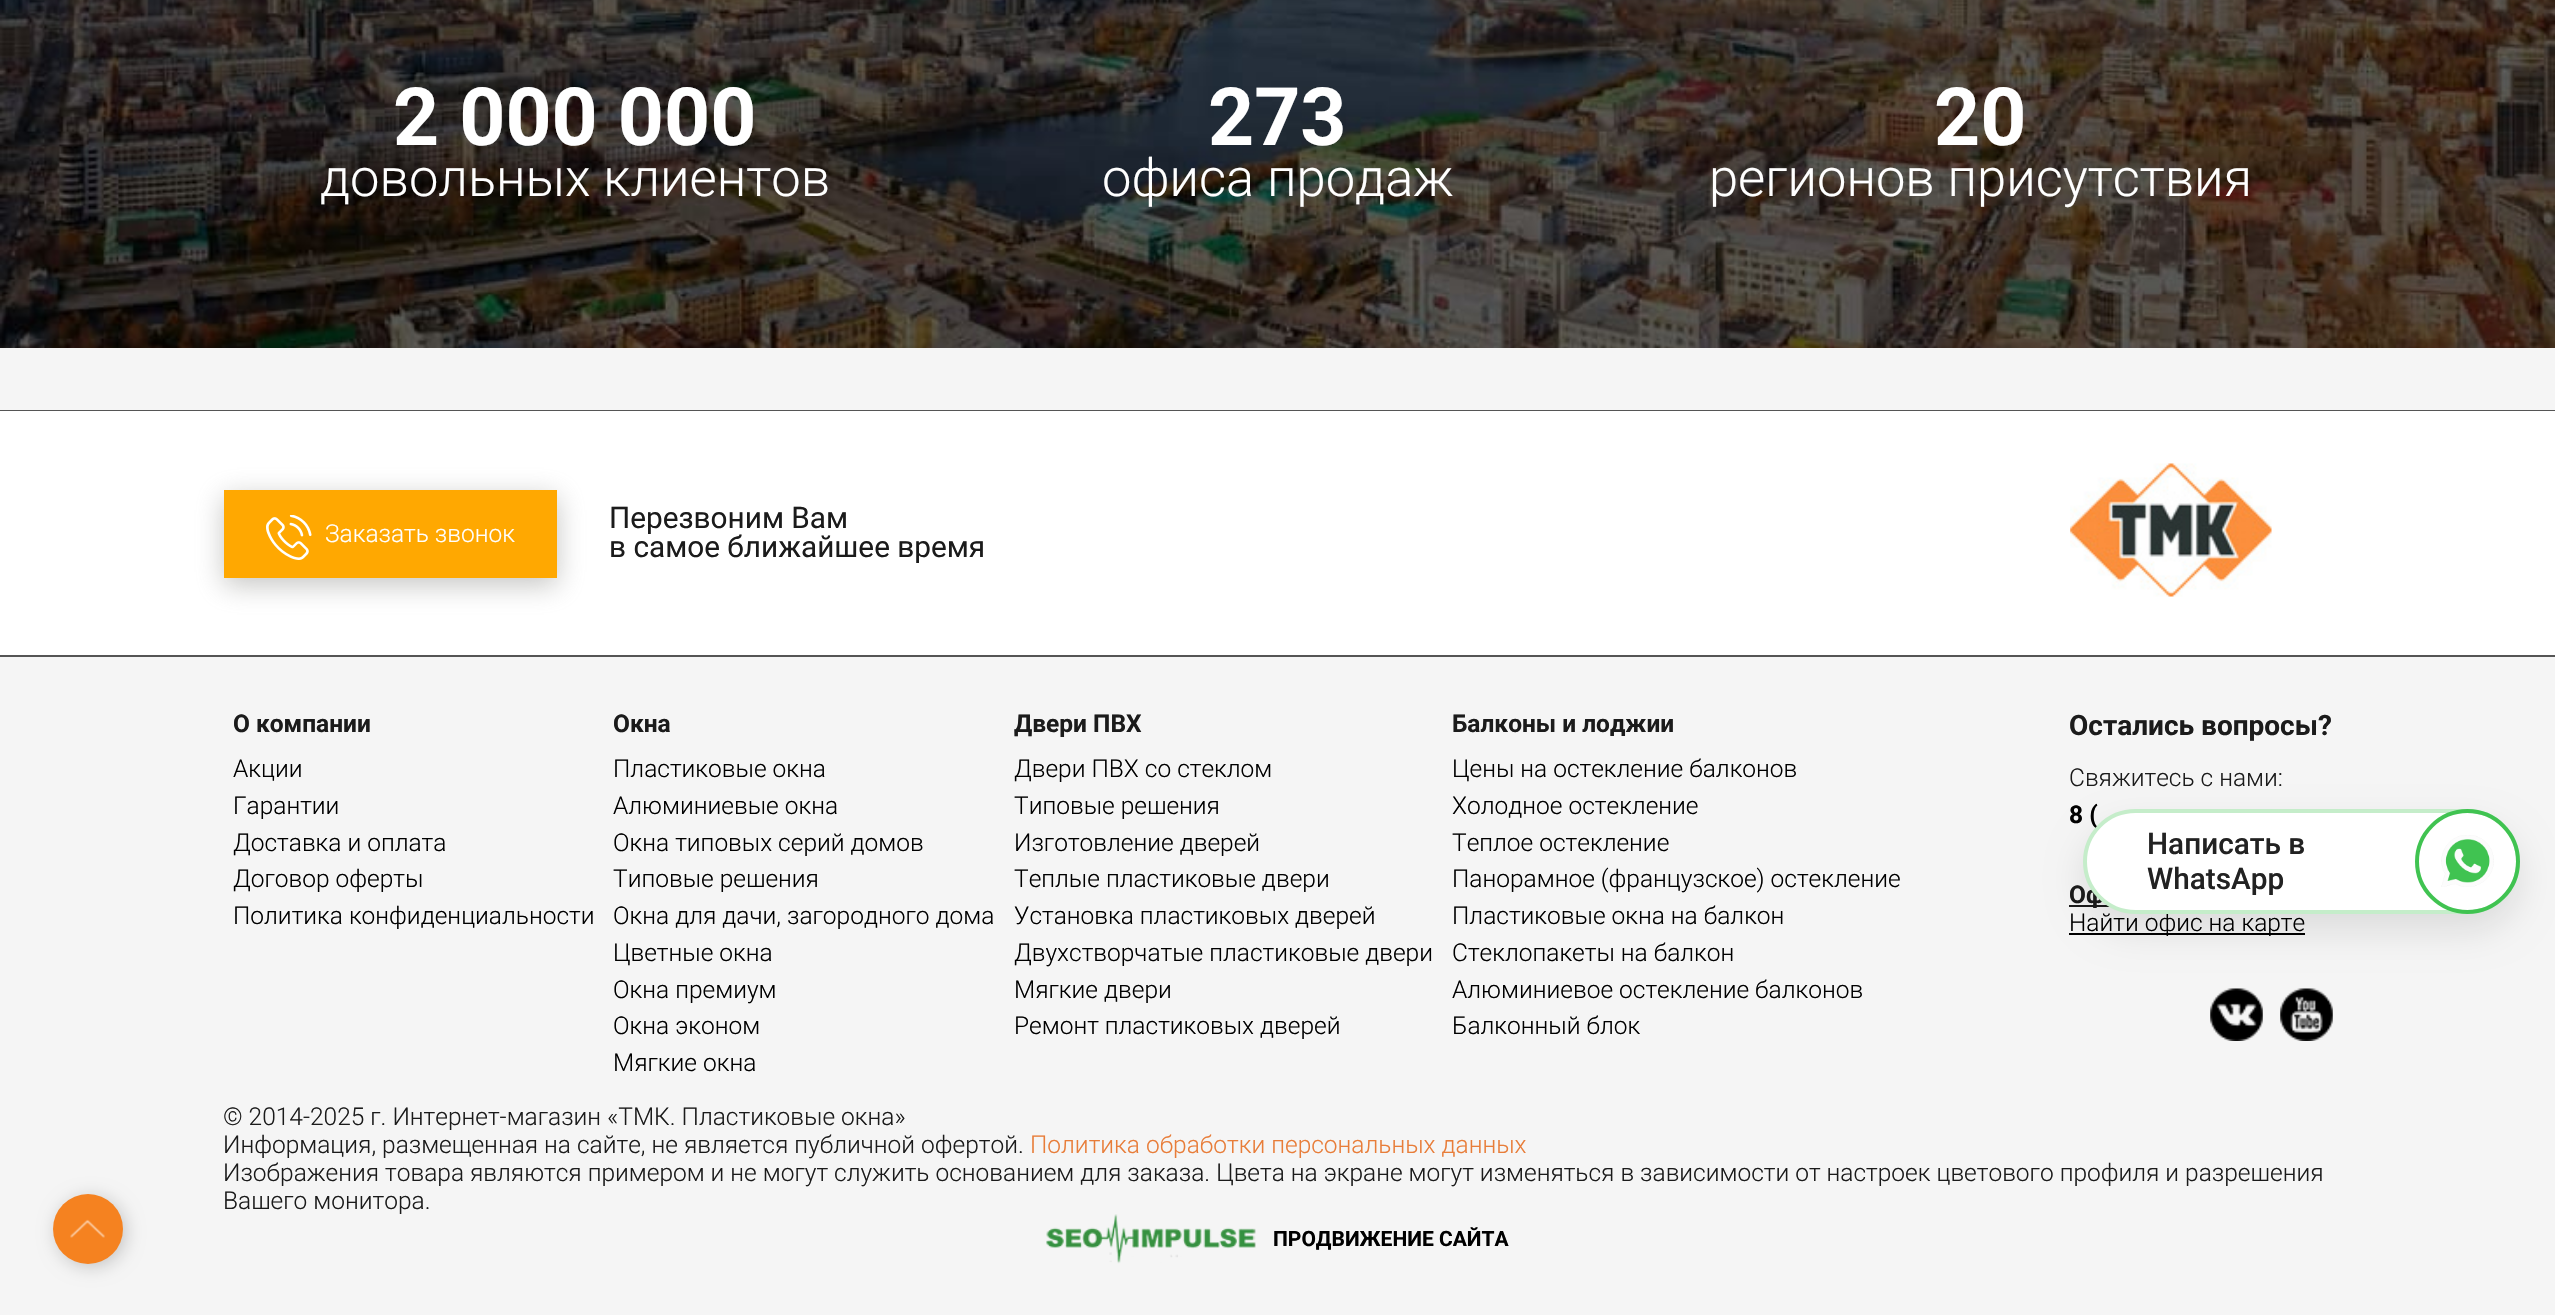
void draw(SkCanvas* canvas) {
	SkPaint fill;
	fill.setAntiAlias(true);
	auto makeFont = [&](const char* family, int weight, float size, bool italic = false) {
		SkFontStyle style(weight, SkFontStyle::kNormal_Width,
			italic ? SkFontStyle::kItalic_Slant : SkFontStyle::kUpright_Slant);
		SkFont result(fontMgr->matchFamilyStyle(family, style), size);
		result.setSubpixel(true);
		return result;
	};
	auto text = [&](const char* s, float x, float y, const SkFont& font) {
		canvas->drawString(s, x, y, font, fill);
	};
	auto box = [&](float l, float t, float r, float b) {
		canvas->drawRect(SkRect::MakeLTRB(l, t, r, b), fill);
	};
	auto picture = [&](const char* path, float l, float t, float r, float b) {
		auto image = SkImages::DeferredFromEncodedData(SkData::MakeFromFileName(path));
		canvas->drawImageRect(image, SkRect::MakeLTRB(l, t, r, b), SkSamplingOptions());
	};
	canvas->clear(0xFFF5F5F5);
	picture("image0.png", 0, 0, 2555, 348);
	fill.setColor(0xFF555555);
	box(0, 410, 2555, 411);
	fill.setColor(0xFFFFFFFF);
	box(0, 411, 2555, 655);
	fill.setColor(0xFF555555);
	box(0, 655, 2555, 657);
	fill.setColor(0xBDB1B1AE);
	fill.setMaskFilter(SkMaskFilter::MakeBlur(kNormal_SkBlurStyle, 13));
	canvas->drawRect(SkRect::MakeLTRB(224, 497, 557, 585), fill);
	fill.setMaskFilter(nullptr);
	fill.setColor(0xFFFFA801);
	box(224, 490, 557, 578);
	picture("image1.png", 266, 515, 312, 560);
	picture("image2.png", 2070, 463, 2272, 597);
	fill.setColor(0xFF1B1B1B);
	box(2069, 905, 2110, 907);
	fill.setColor(0xFF000000);
	box(2069, 933, 2305, 935);
	picture("image3.png", 2210, 988, 2263, 1041);
	picture("image4.png", 2280, 988, 2333, 1041);
	picture("image5.png", 1046, 1214, 1256, 1264);
	fill.setColor(0x1A000000);
	fill.setMaskFilter(SkMaskFilter::MakeBlur(kNormal_SkBlurStyle, 17.5f));
	canvas->drawRoundRect(SkRect::MakeLTRB(2083, 826, 2520, 931), 52.5f, 52.5f, fill);
	fill.setMaskFilter(nullptr);
	fill.setColor(0x33000000);
	fill.setMaskFilter(SkMaskFilter::MakeBlur(kNormal_SkBlurStyle, 9));
	canvas->drawRoundRect(SkRect::MakeLTRB(56, 1197, 126, 1267), 35, 35, fill);
	fill.setMaskFilter(nullptr);
	fill.setColor(0xFFF58220);
	canvas->drawCircle(88, 1229, 35, fill);
	picture("image7.png", 70, 1219, 105, 1238);
	auto font1 = makeFont("Roboto", 700, 80.5f);
	fill.setColor(0xFFFFFFFF);
	text("2 000 000", 393, 145, font1);
	auto font2 = makeFont("Roboto", 300, 52.5f);
	text("довольных клиентов", 320, 196, font2);
	text("273", 1208, 145, font1);
	text("офиса продаж", 1102, 196, font2);
	text("20", 1934, 145, font1);
	text("регионов присутствия", 1709, 196, font2);
	auto font3 = makeFont("Roboto", 300, 24.5f);
	text("Заказать звонок", 325, 542, font3);
	auto font4 = makeFont("Roboto", 400, 29.75f);
	fill.setColor(0xFF1B1B1B);
	text("Перезвоним Вам", 609, 528, font4);
	text("в самое ближайшее время", 609, 557, font4);
	auto font5 = makeFont("Roboto", 700, 24.5f);
	text("О компании", 233, 732, font5);
	fill.setColor(0xFF000000);
	text("Акции", 233, 777, font3);
	text("Гарантии", 233, 814, font3);
	text("Доставка и оплата", 233, 851, font3);
	text("Договор оферты", 233, 887, font3);
	text("Политика конфиденциальности", 233, 924, font3);
	fill.setColor(0xFF1B1B1B);
	text("Окна", 613, 732, font5);
	fill.setColor(0xFF000000);
	text("Пластиковые окна", 613, 777, font3);
	text("Алюминиевые окна", 613, 814, font3);
	text("Окна типовых серий домов", 613, 851, font3);
	text("Типовые решения", 613, 887, font3);
	text("Окна для дачи, загородного дома", 613, 924, font3);
	text("Цветные окна", 613, 961, font3);
	text("Окна премиум", 613, 998, font3);
	text("Окна эконом", 613, 1034, font3);
	text("Мягкие окна", 613, 1071, font3);
	fill.setColor(0xFF1B1B1B);
	text("Двери ПВХ", 1014, 732, font5);
	fill.setColor(0xFF000000);
	text("Двери ПВХ со стеклом", 1014, 777, font3);
	text("Типовые решения", 1014, 814, font3);
	text("Изготовление дверей", 1014, 851, font3);
	text("Теплые пластиковые двери", 1014, 887, font3);
	text("Установка пластиковых дверей", 1014, 924, font3);
	text("Двухстворчатые пластиковые двери", 1014, 961, font3);
	text("Мягкие двери", 1014, 998, font3);
	text("Ремонт пластиковых дверей", 1014, 1034, font3);
	fill.setColor(0xFF1B1B1B);
	text("Балконы и лоджии", 1452, 732, font5);
	fill.setColor(0xFF000000);
	text("Цены на остекление балконов", 1452, 777, font3);
	text("Холодное остекление", 1452, 814, font3);
	text("Теплое остекление", 1452, 851, font3);
	text("Панорамное (французское) остекление", 1452, 887, font3);
	text("Пластиковые окна на балкон", 1452, 924, font3);
	text("Стеклопакеты на балкон", 1452, 961, font3);
	text("Алюминиевое остекление балконов", 1452, 998, font3);
	text("Балконный блок", 1452, 1034, font3);
	auto font6 = makeFont("Roboto", 700, 28);
	fill.setColor(0xFF1B1B1B);
	text("Остались вопросы?", 2069, 735, font6);
	text("Свяжитесь с нами:", 2069, 786, font3);
	fill.setColor(0xFF000000);
	text("8 (", 2069, 823, font5);
	fill.setColor(0xFF1B1B1B);
	text("Оф", 2069, 903, font5);
	fill.setColor(0xFF000000);
	text("Найти офис на карте", 2069, 931, font3);
	fill.setColor(0xFF1B1B1B);
	text("© 2014-2025 г. Интернет-магазин «ТМК. Пластиковые окна»", 223, 1125, font3);
	text("Информация, размещенная на сайте, не является публичной офертой.", 223, 1153, font3);
	fill.setColor(0xFFE87D39);
	text("Политика обработки персональных данных", 1030, 1153, font3);
	fill.setColor(0xFF1B1B1B);
	text("Изображения товара являются примером и не могут служить основанием для заказа. Цвета на экране могут изменяться в зависимости от настроек цветового профиля и разрешения", 223, 1181, font3);
	text("Вашего монитора.", 223, 1209, font3);
	auto font7 = makeFont("Roboto", 700, 21);
	fill.setColor(0xFF000000);
	text("ПРОДВИЖЕНИЕ САЙТА", 1273, 1246, font7);
	fill.setColor(0xFFFFFFFF);
	canvas->drawRoundRect(SkRect::MakeLTRB(2085, 811, 2518, 912), 50.5f, 50.5f, fill);
	fill.setStyle(SkPaint::kStroke_Style);
	fill.setStrokeWidth(4);
	fill.setColor(0xFFC5EDCA);
	canvas->drawRoundRect(SkRect::MakeLTRB(2085, 811, 2518, 912), 50.5f, 50.5f, fill);
	auto font8 = makeFont("Roboto", 500, 29.75f);
	fill.setStyle(SkPaint::kFill_Style);
	fill.setColor(0xFF222222);
	text("Написать в", 2147, 854, font8);
	text("WhatsApp", 2147, 889, font8);
	fill.setStyle(SkPaint::kStroke_Style);
	fill.setColor(0xFF40C351);
	canvas->drawCircle(2467.5f, 861.5f, 50.5f, fill);
	picture("image6.png", 2441, 835, 2494, 887);
}
